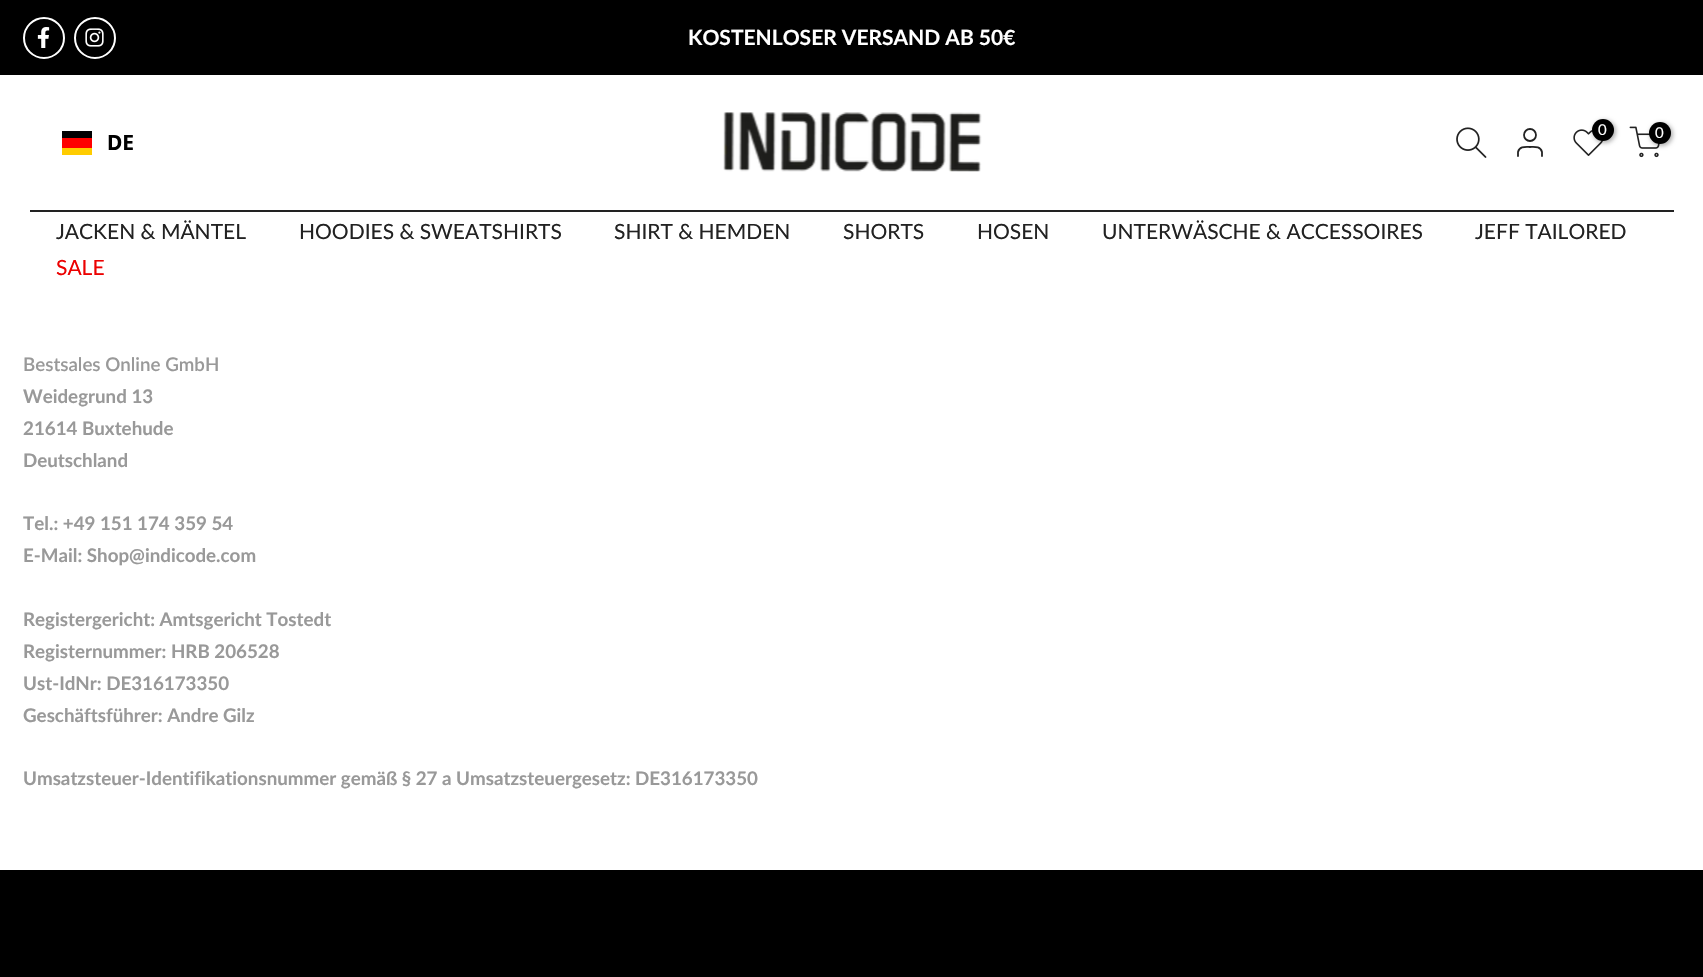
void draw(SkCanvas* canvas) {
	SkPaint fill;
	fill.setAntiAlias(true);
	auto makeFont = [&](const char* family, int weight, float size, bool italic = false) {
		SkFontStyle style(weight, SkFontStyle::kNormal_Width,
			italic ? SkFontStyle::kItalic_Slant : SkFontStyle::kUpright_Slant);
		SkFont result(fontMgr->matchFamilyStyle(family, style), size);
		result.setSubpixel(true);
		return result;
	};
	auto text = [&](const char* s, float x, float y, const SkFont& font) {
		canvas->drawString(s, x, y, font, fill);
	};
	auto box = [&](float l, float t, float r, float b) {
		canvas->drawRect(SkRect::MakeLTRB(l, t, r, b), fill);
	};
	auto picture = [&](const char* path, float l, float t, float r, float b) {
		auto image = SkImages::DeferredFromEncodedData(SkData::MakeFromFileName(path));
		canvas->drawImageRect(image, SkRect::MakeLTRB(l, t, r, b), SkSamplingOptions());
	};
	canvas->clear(0xFFFFFFFF);
	fill.setColor(0xFF000000);
	box(0, 0, 1703, 75);
	fill.setStyle(SkPaint::kStroke_Style);
	fill.setStrokeWidth(2);
	fill.setColor(0xFFFFFFFF);
	canvas->drawCircle(44, 38, 20, fill);
	picture("image0.png", 37, 27, 50, 48);
	canvas->drawCircle(95, 38, 20, fill);
	picture("image1.png", 85, 28, 104, 47);
	fill.setStyle(SkPaint::kFill_Style);
	fill.setColor(0xFF222222);
	box(30, 210, 1674, 212);
	picture("image2.png", 723, 112, 982, 172);
	picture("image3.png", 1456, 127, 1487, 158);
	fill.setStyle(SkPaint::kStroke_Style);
	fill.setStrokeWidth(1.8f);
	canvas->drawCircle(1530, 135, 6, fill);
	fill.setStrokeCap(SkPaint::kRound_Cap);
	fill.setStrokeJoin(SkPaint::kRound_Join);
	canvas->drawPath(SkPathBuilder().moveTo(1542, 156).lineTo(1542, 152).cubicTo(1540.5f, 146, 1534.5f, 147, 1530, 147).cubicTo(1525.5f, 147, 1519.5f, 146, 1518, 152).lineTo(1518, 156).detach(), fill);
	picture("image4.png", 1573, 129, 1604, 156);
	fill.setStyle(SkPaint::kFill_Style);
	fill.setColor(0x4D000000);
	fill.setMaskFilter(SkMaskFilter::MakeBlur(kNormal_SkBlurStyle, 2));
	canvas->drawRoundRect(SkRect::MakeLTRB(1593, 120, 1616, 143), 11.5f, 11.5f, fill);
	fill.setMaskFilter(nullptr);
	fill.setColor(0xFF000000);
	canvas->drawCircle(1603, 130, 11, fill);
	picture("image5.png", 1629, 126, 1660, 158);
	fill.setColor(0x4D000000);
	fill.setMaskFilter(SkMaskFilter::MakeBlur(kNormal_SkBlurStyle, 2));
	canvas->drawRoundRect(SkRect::MakeLTRB(1650, 123, 1673, 146), 11.5f, 11.5f, fill);
	fill.setMaskFilter(nullptr);
	fill.setColor(0xFF000000);
	canvas->drawCircle(1660, 133, 11, fill);
	fill.setColor(0xFFFFCC00);
	box(62, 148, 92, 155);
	fill.setColor(0xFF000001);
	box(62, 131, 92, 138);
	fill.setColor(0xFFFF0000);
	box(62, 138, 92, 148);
	fill.setColor(0xFF000000);
	box(0, 870, 1703, 977);
	auto font1 = makeFont("Lato", 700, 21);
	fill.setColor(0xFFFFFFFF);
	text("KOSTENLOSER VERSAND AB 50€", 688, 45, font1);
	auto font2 = makeFont("Lato", 400, 15);
	text("0", 1598, 135, font2);
	text("0", 1655, 138, font2);
	auto font3 = makeFont("Noto Sans", 700, 21);
	fill.setColor(0xFF000000);
	text("DE", 107, 150, font3);
	auto font4 = makeFont("Lato", 400, 21);
	fill.setColor(0xFF222222);
	text("JACKEN & MÄNTEL", 56, 239, font4);
	text("HOODIES & SWEATSHIRTS", 299, 239, font4);
	text("SHIRT & HEMDEN", 614, 239, font4);
	text("SHORTS", 843, 239, font4);
	text("HOSEN", 977, 239, font4);
	text("UNTERWÄSCHE & ACCESSOIRES", 1102, 239, font4);
	text("JEFF TAILORED", 1475, 239, font4);
	fill.setColor(0xFFEC0101);
	text("SALE", 56, 275, font4);
	auto font5 = makeFont("Lato", 600, 18.75f);
	fill.setColor(0xFF999999);
	text("Bestsales Online GmbH", 23, 371, font5);
	auto font6 = makeFont("Lato", 700, 18.75f);
	text("Weidegrund 13", 23, 403, font6);
	text("21614 Buxtehude", 23, 435, font6);
	text("Deutschland", 23, 467, font6);
	text("Tel.: +49 151 174 359 54", 23, 530, font6);
	text("E-Mail: Shop@indicode.com", 23, 562, font6);
	text("Registergericht: Amtsgericht Tostedt", 23, 626, font6);
	text("Registernummer: HRB 206528", 23, 658, font6);
	text("Ust-IdNr: DE316173350", 23, 690, font6);
	text("Geschäftsführer: Andre Gilz", 23, 722, font6);
	text("Umsatzsteuer-Identifikationsnummer gemäß § 27 a Umsatzsteuergesetz: DE316173350", 23, 785, font6);
}
